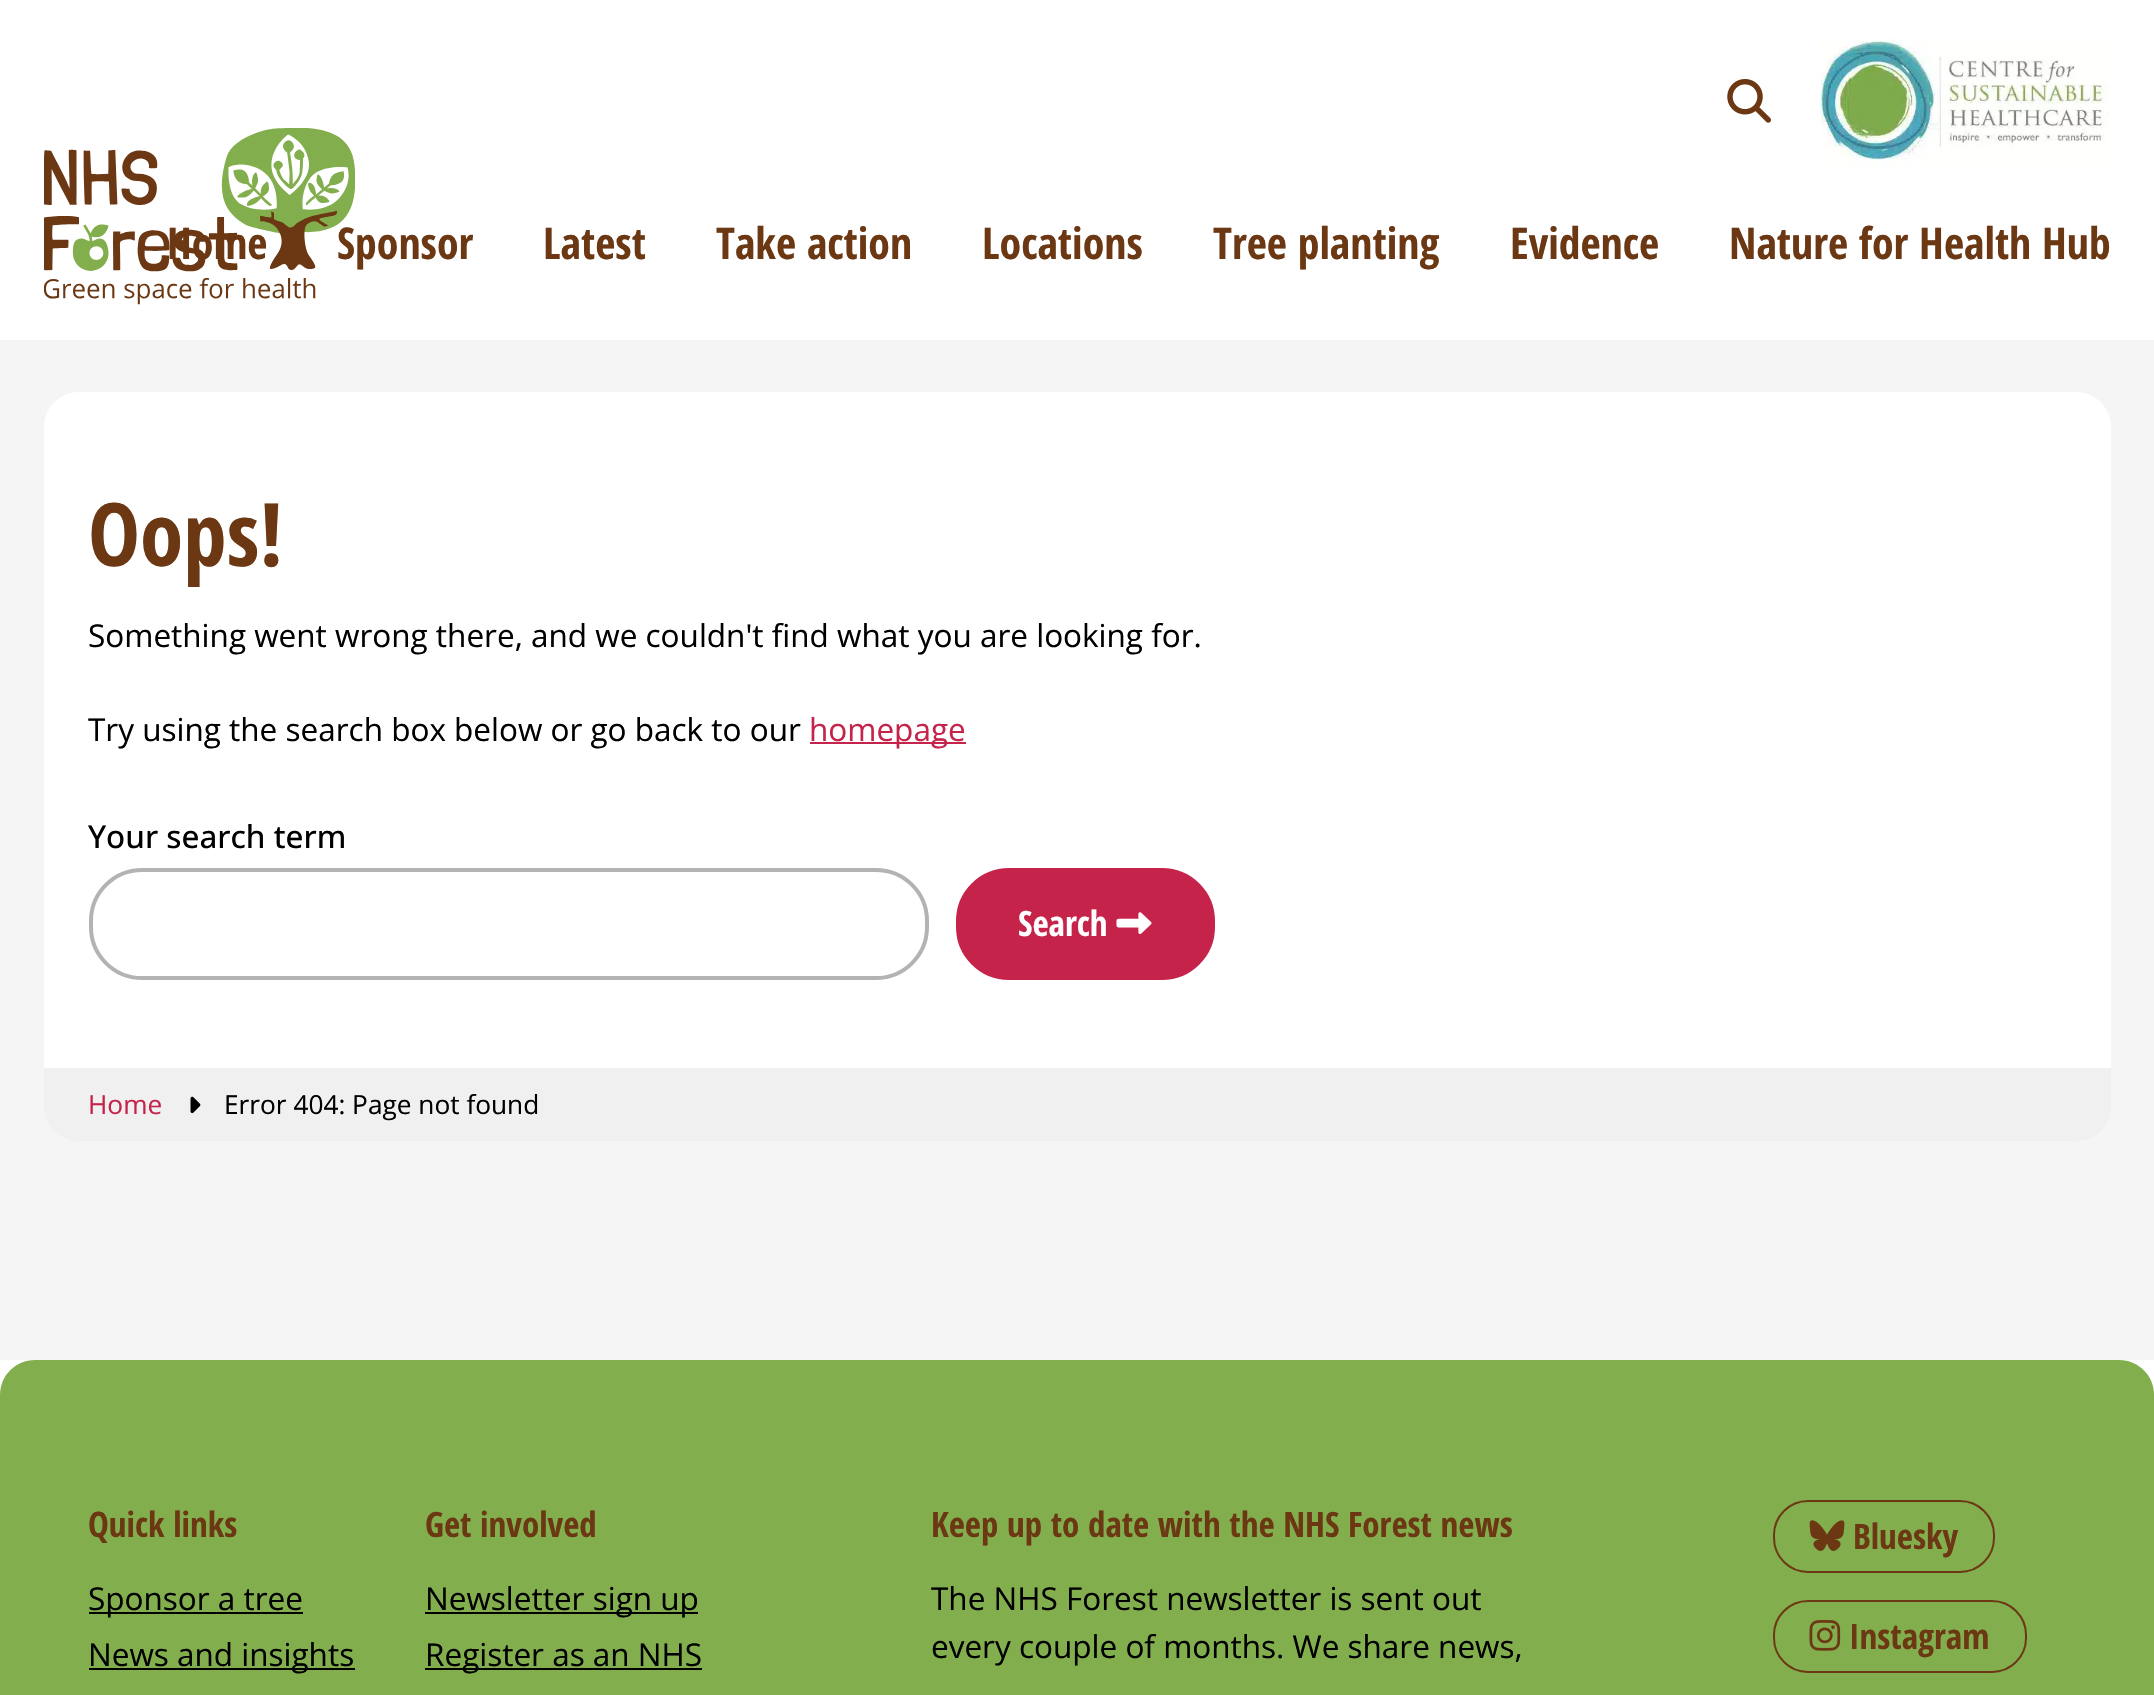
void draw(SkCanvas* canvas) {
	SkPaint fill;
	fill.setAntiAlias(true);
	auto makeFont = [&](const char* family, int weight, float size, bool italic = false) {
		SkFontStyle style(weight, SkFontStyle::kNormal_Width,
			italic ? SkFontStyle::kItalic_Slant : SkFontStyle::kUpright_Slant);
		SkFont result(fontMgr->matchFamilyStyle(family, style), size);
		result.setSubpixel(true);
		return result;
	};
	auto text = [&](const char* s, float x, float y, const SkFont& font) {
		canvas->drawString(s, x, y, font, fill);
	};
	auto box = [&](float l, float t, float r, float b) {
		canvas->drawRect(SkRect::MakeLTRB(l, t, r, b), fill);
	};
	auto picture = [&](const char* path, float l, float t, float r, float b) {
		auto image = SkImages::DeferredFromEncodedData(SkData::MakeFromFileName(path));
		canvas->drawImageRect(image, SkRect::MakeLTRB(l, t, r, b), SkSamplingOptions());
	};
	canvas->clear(0xFFFFFFFF);
	picture("image0.png", 44, 128, 355, 305);
	picture("image1.png", 1727, 79, 1771, 123);
	picture("image2.png", 1820, 39, 2110, 166);
	fill.setColor(0xFFF5F5F5);
	box(0, 340, 2154, 1360);
	fill.setColor(0xFFFFFFFF);
	canvas->drawPath(SkPathBuilder().moveTo(79, 392).lineTo(2076, 392).cubicTo(2095.5f, 392, 2111, 407.5f, 2111, 427).lineTo(2111, 1068).lineTo(44, 1068).lineTo(44, 427).cubicTo(44, 407.5f, 59.5f, 392, 79, 392).close().detach(), fill);
	fill.setColor(0xFFC5234A);
	box(810, 742, 966, 744);
	fill.setStyle(SkPaint::kStroke_Style);
	fill.setStrokeWidth(4);
	fill.setColor(0xFFB3B3B3);
	canvas->drawRoundRect(SkRect::MakeLTRB(91, 870, 927, 978), 51, 51, fill);
	fill.setStyle(SkPaint::kFill_Style);
	fill.setColor(0xFFC5234A);
	canvas->drawRoundRect(SkRect::MakeLTRB(957, 869, 1214, 979), 52, 52, fill);
	fill.setStyle(SkPaint::kStroke_Style);
	fill.setStrokeWidth(2);
	canvas->drawRoundRect(SkRect::MakeLTRB(957, 869, 1214, 979), 52, 52, fill);
	picture("image3.png", 1116, 912, 1152, 934);
	fill.setStyle(SkPaint::kFill_Style);
	fill.setColor(0xFFF0F0F0);
	canvas->drawPath(SkPathBuilder().moveTo(44, 1068).lineTo(2111, 1068).lineTo(2111, 1106).cubicTo(2111, 1125.5f, 2095.5f, 1141, 2076, 1141).lineTo(79, 1141).cubicTo(59.5f, 1141, 44, 1125.5f, 44, 1106).close().detach(), fill);
	picture("image4.png", 190, 1096, 201, 1114);
	fill.setColor(0xFF82AE4E);
	canvas->drawPath(SkPathBuilder().moveTo(35, 1360).lineTo(2119, 1360).cubicTo(2138.5f, 1360, 2154, 1375.5f, 2154, 1395).lineTo(2154, 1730).lineTo(0, 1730).lineTo(0, 1395).cubicTo(0, 1375.5f, 15.5f, 1360, 35, 1360).close().detach(), fill);
	fill.setColor(0xFF000000);
	box(89, 1612, 303, 1614);
	box(89, 1668, 355, 1670);
	box(425, 1612, 698, 1614);
	box(425, 1668, 702, 1670);
	fill.setStyle(SkPaint::kStroke_Style);
	fill.setColor(0xFF6B3813);
	canvas->drawRoundRect(SkRect::MakeLTRB(1774, 1501, 1994, 1572), 34, 34, fill);
	picture("image5.png", 1809, 1520, 1845, 1551);
	canvas->drawRoundRect(SkRect::MakeLTRB(1774, 1601, 2026, 1672), 34, 34, fill);
	picture("image6.png", 1809, 1620, 1841, 1651);
	auto font1 = makeFont("Open Sans Condensed", 700, 43.75f);
	fill.setStyle(SkPaint::kFill_Style);
	text("Home", 167, 259, font1);
	text("Sponsor", 337, 259, font1);
	text("Latest", 543, 259, font1);
	text("Take action", 716, 259, font1);
	text("Locations", 982, 259, font1);
	text("Tree planting", 1213, 259, font1);
	text("Evidence", 1510, 259, font1);
	text("Nature for Health Hub", 1729, 259, font1);
	auto font2 = makeFont("Open Sans Condensed", 700, 87.5f);
	text("Oops!", 88, 566, font2);
	auto font3 = makeFont("Open Sans", 400, 31.5f);
	fill.setColor(0xFF000000);
	text("Something went wrong there, and we couldn't find what you are looking for.", 88, 647, font3);
	text("Try using the search box below or go back to our", 88, 741, font3);
	fill.setColor(0xFFC5234A);
	text("homepage", 809, 741, font3);
	auto font4 = makeFont("Open Sans", 500, 31.5f);
	fill.setColor(0xFF000000);
	text("Your search term", 88, 848, font4);
	auto font5 = makeFont("Open Sans Condensed", 700, 35);
	fill.setColor(0xFFFFFFFF);
	text("Search", 1018, 936, font5);
	auto font6 = makeFont("Open Sans", 400, 26.25f);
	fill.setColor(0xFFC5234A);
	text("Home", 88, 1114, font6);
	fill.setColor(0xFF000000);
	text("Error 404: Page not found", 224, 1114, font6);
	fill.setColor(0xFF6B3813);
	text("Quick links", 88, 1537, font5);
	fill.setColor(0xFF000000);
	text("Sponsor a tree", 88, 1610, font3);
	text("News and insights", 88, 1666, font3);
	fill.setColor(0xFF6B3813);
	text("Get involved", 425, 1537, font5);
	fill.setColor(0xFF000000);
	text("Newsletter sign up", 425, 1610, font3);
	text("Register as an NHS", 425, 1666, font3);
	fill.setColor(0xFF6B3813);
	text("Keep up to date with the NHS Forest news", 931, 1537, font5);
	fill.setColor(0xFF000000);
	text("The NHS Forest newsletter is sent out", 931, 1610, font3);
	text("every couple of months. We share news,", 931, 1658, font3);
	fill.setColor(0xFF6B3813);
	text("Bluesky", 1853, 1549, font5);
	text("Instagram", 1849, 1649, font5);
}
